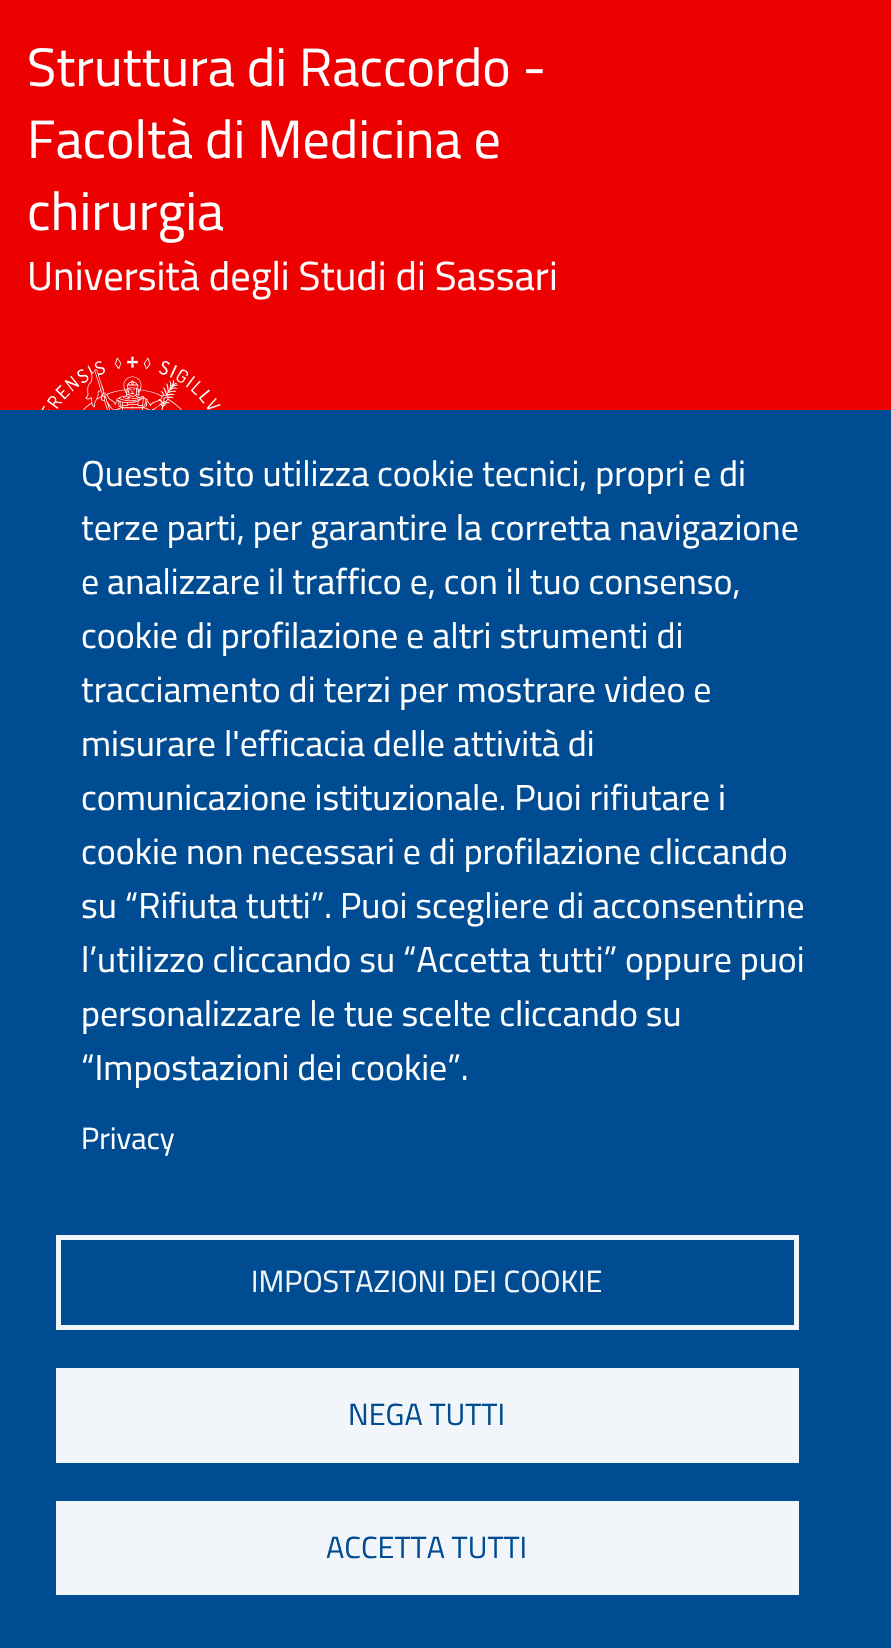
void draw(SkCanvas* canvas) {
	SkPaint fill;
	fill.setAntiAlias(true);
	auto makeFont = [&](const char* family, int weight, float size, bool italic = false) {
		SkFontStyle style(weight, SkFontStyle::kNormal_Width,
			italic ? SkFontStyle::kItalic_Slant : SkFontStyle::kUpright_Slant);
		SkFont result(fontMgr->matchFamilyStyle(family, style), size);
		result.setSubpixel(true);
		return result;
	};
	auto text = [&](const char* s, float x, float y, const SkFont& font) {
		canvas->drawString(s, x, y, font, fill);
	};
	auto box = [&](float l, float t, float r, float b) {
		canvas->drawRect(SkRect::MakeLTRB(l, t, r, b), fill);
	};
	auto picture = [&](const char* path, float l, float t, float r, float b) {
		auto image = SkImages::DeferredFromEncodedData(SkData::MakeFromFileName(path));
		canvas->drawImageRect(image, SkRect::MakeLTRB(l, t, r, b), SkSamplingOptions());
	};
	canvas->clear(0xFFEC0000);
	picture("image0.png", 41, 356, 221, 410);
	fill.setColor(0xFF004C93);
	box(0, 410, 891, 1648);
	fill.setStyle(SkPaint::kStroke_Style);
	fill.setStrokeWidth(5);
	fill.setColor(0xFFF2F6FA);
	canvas->drawRect(SkRect::MakeLTRB(58.5f, 1237.5f, 796.5f, 1327.5f), fill);
	fill.setStyle(SkPaint::kFill_Style);
	box(56, 1368, 799, 1463);
	box(56, 1501, 799, 1595);
	auto font1 = makeFont("Titillium Web", 400, 54);
	fill.setColor(0xFFFFFFFF);
	text("Struttura di Raccordo -", 27, 86, font1);
	text("Facoltà di Medicina e", 27, 158, font1);
	text("chirurgia", 27, 230, font1);
	auto font2 = makeFont("Titillium Web", 400, 40.5f);
	text("Università degli Studi di Sassari", 27, 290, font2);
	auto font3 = makeFont("Titillium Web", 400, 36);
	text("Questo sito utilizza cookie tecnici, propri e di", 81, 486, font3);
	text("terze parti, per garantire la corretta navigazione", 81, 540, font3);
	text("e analizzare il traffico e, con il tuo consenso,", 81, 594, font3);
	text("cookie di profilazione e altri strumenti di", 81, 648, font3);
	text("tracciamento di terzi per mostrare video e", 81, 702, font3);
	text("misurare l'efficacia delle attività di", 81, 756, font3);
	text("comunicazione istituzionale. Puoi rifiutare i", 81, 810, font3);
	text("cookie non necessari e di profilazione cliccando", 81, 864, font3);
	text("su “Rifiuta tutti”. Puoi scegliere di acconsentirne", 81, 918, font3);
	text("l’utilizzo cliccando su “Accetta tutti” oppure puoi", 81, 972, font3);
	text("personalizzare le tue scelte cliccando su", 81, 1026, font3);
	text("“Impostazioni dei cookie”.", 81, 1080, font3);
	auto font4 = makeFont("Titillium Web", 400, 30.6f);
	text("Privacy", 81, 1149, font4);
	fill.setColor(0xFFF2F6FA);
	text("IMPOSTAZIONI DEI COOKIE", 251, 1292, font4);
	fill.setColor(0xFF004C93);
	text("NEGA TUTTI", 348, 1425, font4);
	text("ACCETTA TUTTI", 326, 1558, font4);
}
